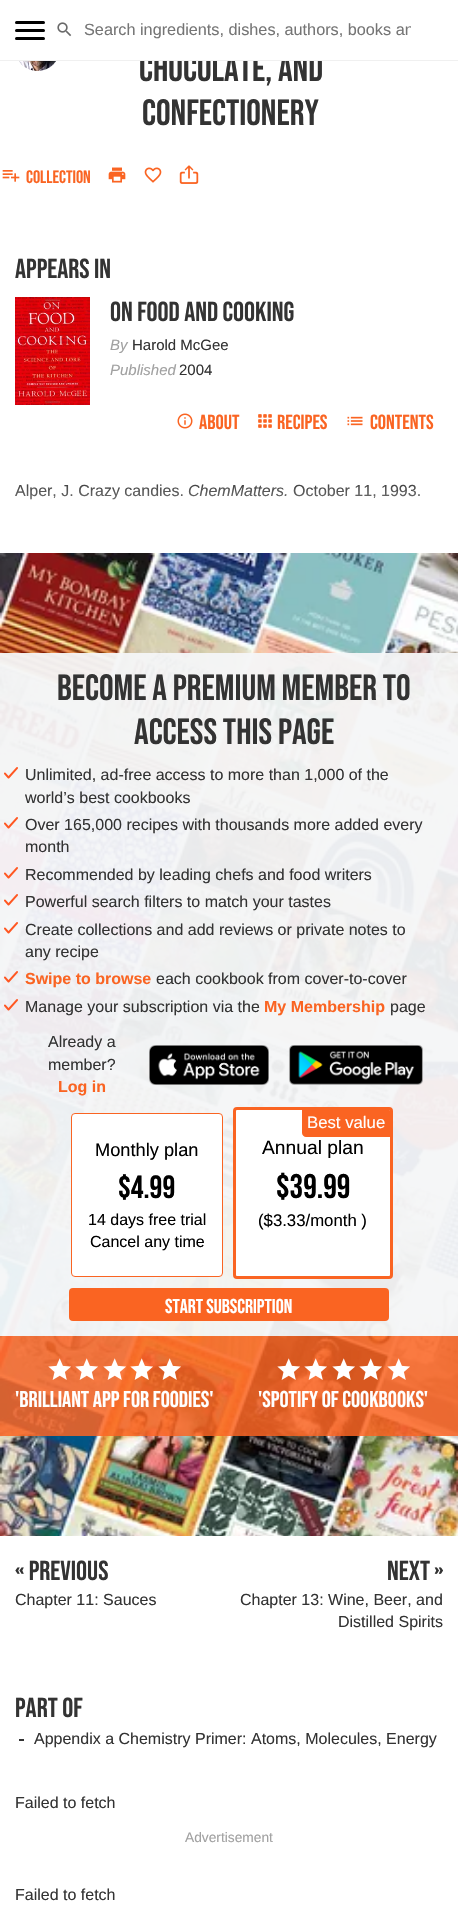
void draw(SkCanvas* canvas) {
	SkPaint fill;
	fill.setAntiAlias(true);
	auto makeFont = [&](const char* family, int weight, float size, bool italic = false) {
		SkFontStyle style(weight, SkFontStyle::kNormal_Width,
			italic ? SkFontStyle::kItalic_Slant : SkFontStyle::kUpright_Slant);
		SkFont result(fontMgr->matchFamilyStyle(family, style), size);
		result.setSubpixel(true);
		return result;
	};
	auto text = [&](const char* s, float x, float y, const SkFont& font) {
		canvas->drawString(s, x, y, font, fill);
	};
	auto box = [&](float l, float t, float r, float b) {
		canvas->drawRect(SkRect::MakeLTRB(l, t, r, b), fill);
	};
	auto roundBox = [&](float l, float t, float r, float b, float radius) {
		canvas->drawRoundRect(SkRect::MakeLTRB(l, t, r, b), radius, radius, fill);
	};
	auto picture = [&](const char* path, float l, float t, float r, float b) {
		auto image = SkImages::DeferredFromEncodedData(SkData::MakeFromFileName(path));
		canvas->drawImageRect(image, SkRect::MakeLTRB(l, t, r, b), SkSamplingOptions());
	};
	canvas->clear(0xFFFFFFFF);
	fill.setColor(0xFF000000);
	roundBox(15, 29, 45, 32, 1.5f);
	roundBox(15, 21, 45, 24, 1.5f);
	roundBox(15, 37, 45, 40, 1.5f);
	picture("image0.png", 57, 22, 72, 37);
	picture("image1.png", 19, 61, 56, 71);
	picture("image2.png", 2, 170, 20, 182);
	picture("image3.png", 108, 167, 126, 183);
	picture("image4.png", 144, 167, 162, 183);
	picture("image5.png", 179, 165, 199, 184);
	picture("image6.png", 15, 297, 90, 405);
	picture("image7.png", 177, 413, 193, 429);
	picture("image8.png", 258, 414, 272, 428);
	picture("image9.png", 347, 416, 363, 426);
	picture("image10.png", 0, 553, 458, 1536);
	fill.setColor(0xF2F4F5F7);
	box(0, 653, 458, 1336);
	picture("image11.png", 4, 767, 18, 779);
	picture("image12.png", 4, 817, 18, 829);
	picture("image13.png", 4, 867, 18, 879);
	picture("image14.png", 4, 894, 18, 906);
	picture("image15.png", 4, 922, 18, 934);
	picture("image16.png", 4, 971, 18, 983);
	picture("image17.png", 4, 999, 18, 1011);
	picture("image18.png", 149, 1045, 269, 1085);
	picture("image19.png", 289, 1045, 423, 1085);
	fill.setColor(0xFFFFFFFF);
	canvas->drawRoundRect(SkRect::MakeLTRB(71.5f, 1113.5f, 222.5f, 1276.5f), 3.5f, 3.5f, fill);
	fill.setStyle(SkPaint::kStroke_Style);
	fill.setStrokeWidth(1);
	fill.setColor(0xFFFA6422);
	canvas->drawRoundRect(SkRect::MakeLTRB(71.5f, 1113.5f, 222.5f, 1276.5f), 3.5f, 3.5f, fill);
	fill.setStyle(SkPaint::kFill_Style);
	fill.setColor(0xFFFFFFFF);
	canvas->drawRoundRect(SkRect::MakeLTRB(234.5f, 1108.5f, 391.5f, 1277.5f), 2.5f, 2.5f, fill);
	fill.setStyle(SkPaint::kStroke_Style);
	fill.setStrokeWidth(3);
	fill.setColor(0xFFFA6422);
	canvas->drawRoundRect(SkRect::MakeLTRB(234.5f, 1108.5f, 391.5f, 1277.5f), 2.5f, 2.5f, fill);
	fill.setStyle(SkPaint::kFill_Style);
	canvas->drawPath(SkPathBuilder().moveTo(302, 1109).lineTo(387, 1109).cubicTo(389, 1109, 391, 1111, 391, 1113).lineTo(391, 1137).lineTo(306, 1137).cubicTo(304, 1137, 302, 1135, 302, 1133).close().detach(), fill);
	roundBox(69, 1288, 389, 1321, 4);
	fill.setColor(0xD9FA6422);
	box(0, 1336, 458, 1436);
	picture("image20.png", 48, 1358, 71, 1380);
	picture("image21.png", 75, 1358, 98, 1380);
	picture("image22.png", 103, 1358, 126, 1380);
	picture("image23.png", 130, 1358, 153, 1380);
	picture("image24.png", 158, 1358, 181, 1380);
	picture("image25.png", 277, 1358, 300, 1380);
	picture("image26.png", 304, 1358, 327, 1380);
	picture("image27.png", 332, 1358, 355, 1380);
	picture("image28.png", 359, 1358, 382, 1380);
	picture("image29.png", 387, 1358, 410, 1380);
	fill.setColor(0xFF333333);
	box(19, 1739, 24, 1741);
	canvas->save();
	canvas->clipRect(SkRect::MakeLTRB(84, 20, 411, 39));
	auto font1 = makeFont("Liberation Sans", 400, 16.25f);
	fill.setColor(0xFF757575);
	text("Search ingredients, dishes, authors, books an", 84, 35, font1);
	canvas->restore();
	auto font2 = makeFont("Bebas Neue", 400, 36.5f);
	fill.setColor(0xFF333333);
	text("CHOCOLATE, AND", 139, 81, font2);
	fill.setColor(0xFFF0F0F0);
	box(0, 60, 458, 61);
	fill.setColor(0xFFFFFFFF);
	box(139, 55, 322, 60);
	fill.setColor(0xFF333333);
	text("CONFECTIONERY", 142, 125, font2);
	auto font3 = makeFont("Bebas Neue", 400, 18);
	fill.setColor(0xFFFA6422);
	text("COLLECTION", 26, 183, font3);
	auto font4 = makeFont("Bebas Neue", 400, 27.5f);
	fill.setColor(0xFF333333);
	text("APPEARS IN", 15, 278, font4);
	text("ON FOOD AND COOKING", 110, 321, font4);
	auto font5 = makeFont("Liberation Sans", 400, 15, true);
	fill.setColor(0xFFA1A1A1);
	text("By", 110, 350, font5);
	auto font6 = makeFont("Liberation Sans", 400, 15);
	fill.setColor(0xFF333333);
	text("Harold McGee", 132, 350, font6);
	fill.setColor(0xFFA1A1A1);
	text("Published", 110, 375, font5);
	fill.setColor(0xFF333333);
	text("2004", 179, 375, font6);
	auto font7 = makeFont("Bebas Neue", 400, 20.5f);
	fill.setColor(0xFFFA6422);
	text("ABOUT", 199, 429, font7);
	text("RECIPES", 277, 429, font7);
	text("CONTENTS", 370, 429, font7);
	auto font8 = makeFont("Liberation Sans", 400, 16);
	fill.setColor(0xFF333333);
	text("Alper, J. Crazy candies.", 15, 496, font8);
	auto font9 = makeFont("Liberation Sans", 400, 16, true);
	text("ChemMatters.", 188, 496, font9);
	text("October 11, 1993.", 293, 496, font8);
	{
		const SkColor colors[] = {0x00FFFFFF, 0xFFFFFFFF};
		const float stops[] = {0, 1};
		const SkPoint ends[] = {{229, 478}, {229, 553}};
		fill.setShader(SkGradientShader::MakeLinear(ends, colors, stops, 2, SkTileMode::kClamp));
		fill.setAlpha(255);
	}
	box(15, 484, 420, 500);
	fill.setShader(nullptr);
	fill.setColor(0xFF333333);
	text("BECOME A PREMIUM MEMBER TO", 57, 700, font2);
	text("ACCESS THIS PAGE", 134, 744, font2);
	text("Unlimited, ad-free access to more than 1,000 of the", 25, 780, font8);
	text("world’s best cookbooks", 25, 803, font8);
	text("Over 165,000 recipes with thousands more added every", 25, 830, font8);
	text("month", 25, 852, font8);
	text("Recommended by leading chefs and food writers", 25, 880, font8);
	text("Powerful search filters to match your tastes", 25, 907, font8);
	text("Create collections and add reviews or private notes to", 25, 935, font8);
	text("any recipe", 25, 957, font8);
	auto font10 = makeFont("Liberation Sans", 700, 16);
	fill.setColor(0xFFFA6422);
	text("Swipe to browse", 25, 984, font10);
	fill.setColor(0xFF333333);
	text("each cookbook from cover-to-cover", 156, 984, font8);
	text("Manage your subscription via the", 25, 1012, font8);
	fill.setColor(0xFFFA6422);
	text("My Membership", 264, 1012, font10);
	fill.setColor(0xFF333333);
	text("page", 390, 1012, font8);
	text("Already a", 48, 1047, font8);
	text("member?", 48, 1070, font8);
	fill.setColor(0xFFFA6422);
	text("Log in", 58, 1092, font10);
	auto font11 = makeFont("Liberation Sans", 400, 18.25f);
	fill.setColor(0xFF000000);
	text("Monthly plan", 95, 1156, font11);
	auto font12 = makeFont("Bebas Neue", 400, 32);
	text("$4.99", 118, 1198, font12);
	text("14 days free trial", 88, 1225, font8);
	text("Cancel any time", 90, 1247, font8);
	auto font13 = makeFont("Liberation Sans", 400, 16.75f);
	fill.setColor(0xFFFFFFFF);
	text("Best value", 307, 1128, font13);
	auto font14 = makeFont("Liberation Sans", 400, 19.25f);
	fill.setColor(0xFF000000);
	text("Annual plan", 262, 1154, font14);
	auto font15 = makeFont("Bebas Neue", 400, 34);
	text("$39.99", 276, 1198, font15);
	text("($3.33/month )", 258, 1226, font13);
	auto font16 = makeFont("Bebas Neue", 400, 20);
	fill.setColor(0xFFFFFFFF);
	text("START SUBSCRIPTION", 165, 1313, font16);
	auto font17 = makeFont("Bebas Neue", 400, 22.75f);
	text("'Brilliant app for foodies'", 15, 1407, font17);
	text("'Spotify of cookbooks'", 258, 1407, font17);
	fill.setColor(0xFF333333);
	text("« PREVIOUS", 15, 1580, font4);
	text("Chapter 11: Sauces", 15, 1605, font8);
	text("NEXT »", 387, 1580, font4);
	text("Chapter 13: Wine, Beer, and", 240, 1605, font8);
	text("Distilled Spirits", 338, 1627, font8);
	text("PART OF", 15, 1717, font4);
	text("Appendix a Chemistry Primer: Atoms, Molecules, Energy", 34, 1744, font8);
	text("Failed to fetch", 15, 1808, font8);
	auto font18 = makeFont("Liberation Sans", 400, 13.75f);
	fill.setColor(0xFFA1A1A1);
	text("Advertisement", 185, 1842, font18);
	fill.setColor(0xFF333333);
	text("Failed to fetch", 15, 1900, font8);
}
